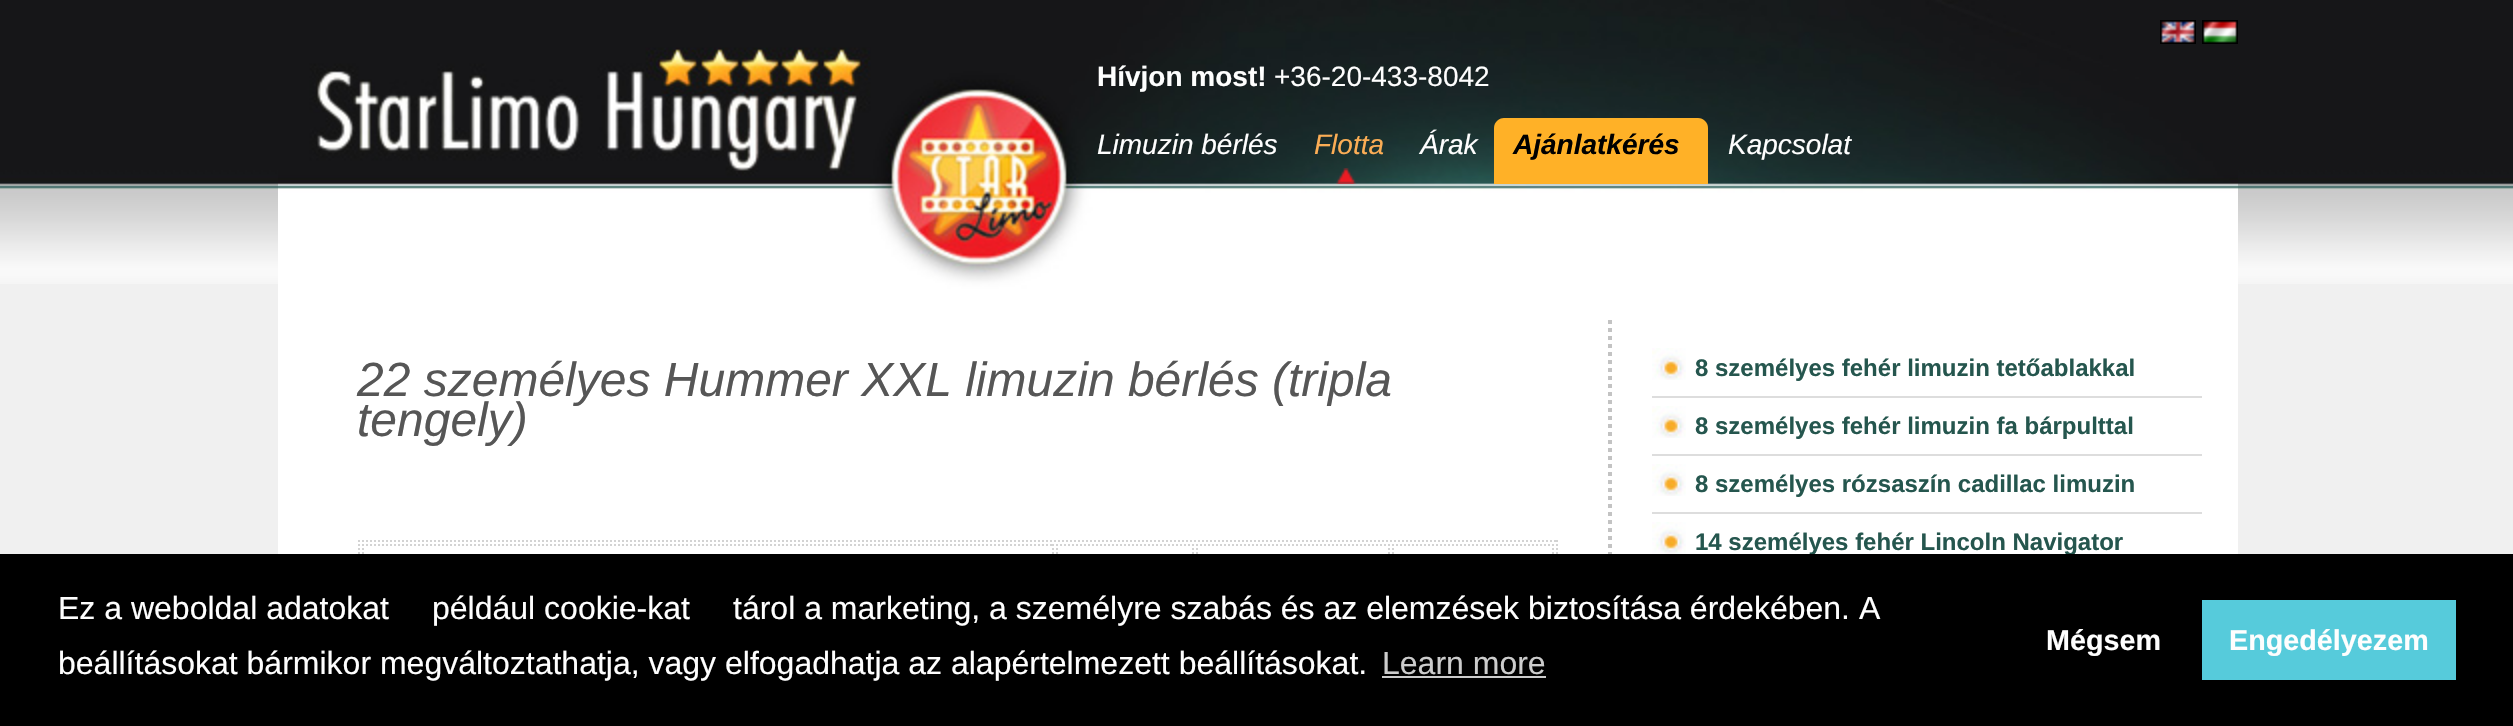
void draw(SkCanvas* canvas) {
	SkPaint fill;
	fill.setAntiAlias(true);
	auto makeFont = [&](const char* family, int weight, float size, bool italic = false) {
		SkFontStyle style(weight, SkFontStyle::kNormal_Width,
			italic ? SkFontStyle::kItalic_Slant : SkFontStyle::kUpright_Slant);
		SkFont result(fontMgr->matchFamilyStyle(family, style), size);
		result.setSubpixel(true);
		return result;
	};
	auto text = [&](const char* s, float x, float y, const SkFont& font) {
		canvas->drawString(s, x, y, font, fill);
	};
	auto box = [&](float l, float t, float r, float b) {
		canvas->drawRect(SkRect::MakeLTRB(l, t, r, b), fill);
	};
	auto picture = [&](const char* path, float l, float t, float r, float b) {
		auto image = SkImages::DeferredFromEncodedData(SkData::MakeFromFileName(path));
		canvas->drawImageRect(image, SkRect::MakeLTRB(l, t, r, b), SkSamplingOptions());
	};
	canvas->clear(0xFFF0F0F0);
	picture("image0.png", 0, 0, 2513, 284);
	picture("image1.png", 278, 0, 2238, 290);
	picture("image2.png", 2160, 20, 2196, 44);
	picture("image3.png", 2202, 20, 2238, 44);
	picture("image4.png", 1336, 168, 1356, 184);
	fill.setColor(0xFFFFB127);
	canvas->drawPath(SkPathBuilder().moveTo(1504, 118).lineTo(1698, 118).cubicTo(1703.5f, 118, 1708, 122.5f, 1708, 128).lineTo(1708, 184).lineTo(1494, 184).lineTo(1494, 128).cubicTo(1494, 122.5f, 1498.5f, 118, 1504, 118).close().detach(), fill);
	fill.setColor(0xFFFFFFFF);
	box(278, 290, 2238, 554);
	fill.setStyle(SkPaint::kStroke_Style);
	fill.setStrokeWidth(2);
	fill.setColor(0xFFD3D3D3);
	fill.setPathEffect(SkDashPathEffect::Make({{2, 2}}, 0));
	canvas->drawPath(SkPathBuilder().moveTo(358, 541).lineTo(1558, 541).detach(), fill);
	fill.setPathEffect(nullptr);
	fill.setPathEffect(SkDashPathEffect::Make({{2, 2}}, 0));
	canvas->drawPath(SkPathBuilder().moveTo(1557, 540).lineTo(1557, 686).detach(), fill);
	fill.setPathEffect(nullptr);
	fill.setPathEffect(SkDashPathEffect::Make({{2, 2}}, 0));
	canvas->drawPath(SkPathBuilder().moveTo(359, 540).lineTo(359, 686).detach(), fill);
	fill.setPathEffect(nullptr);
	fill.setPathEffect(SkDashPathEffect::Make({{2, 2}}, 0));
	canvas->drawPath(SkPathBuilder().moveTo(362, 545).lineTo(1054, 545).detach(), fill);
	fill.setPathEffect(nullptr);
	fill.setPathEffect(SkDashPathEffect::Make({{2, 2}}, 0));
	canvas->drawPath(SkPathBuilder().moveTo(1053, 544).lineTo(1053, 612).detach(), fill);
	fill.setPathEffect(nullptr);
	fill.setPathEffect(SkDashPathEffect::Make({{2, 2}}, 0));
	canvas->drawPath(SkPathBuilder().moveTo(363, 544).lineTo(363, 612).detach(), fill);
	fill.setPathEffect(nullptr);
	fill.setPathEffect(SkDashPathEffect::Make({{2, 2}}, 0));
	canvas->drawPath(SkPathBuilder().moveTo(1056, 545).lineTo(1194, 545).detach(), fill);
	fill.setPathEffect(nullptr);
	fill.setPathEffect(SkDashPathEffect::Make({{2, 2}}, 0));
	canvas->drawPath(SkPathBuilder().moveTo(1193, 544).lineTo(1193, 612).detach(), fill);
	fill.setPathEffect(nullptr);
	fill.setPathEffect(SkDashPathEffect::Make({{2, 2}}, 0));
	canvas->drawPath(SkPathBuilder().moveTo(1057, 544).lineTo(1057, 612).detach(), fill);
	fill.setPathEffect(nullptr);
	fill.setPathEffect(SkDashPathEffect::Make({{2, 2}}, 0));
	canvas->drawPath(SkPathBuilder().moveTo(1196, 545).lineTo(1390, 545).detach(), fill);
	fill.setPathEffect(nullptr);
	fill.setPathEffect(SkDashPathEffect::Make({{2, 2}}, 0));
	canvas->drawPath(SkPathBuilder().moveTo(1389, 544).lineTo(1389, 612).detach(), fill);
	fill.setPathEffect(nullptr);
	fill.setPathEffect(SkDashPathEffect::Make({{2, 2}}, 0));
	canvas->drawPath(SkPathBuilder().moveTo(1197, 544).lineTo(1197, 612).detach(), fill);
	fill.setPathEffect(nullptr);
	fill.setPathEffect(SkDashPathEffect::Make({{2, 2}}, 0));
	canvas->drawPath(SkPathBuilder().moveTo(1392, 545).lineTo(1554, 545).detach(), fill);
	fill.setPathEffect(nullptr);
	fill.setPathEffect(SkDashPathEffect::Make({{2, 2}}, 0));
	canvas->drawPath(SkPathBuilder().moveTo(1553, 544).lineTo(1553, 612).detach(), fill);
	fill.setPathEffect(nullptr);
	fill.setPathEffect(SkDashPathEffect::Make({{2, 2}}, 0));
	canvas->drawPath(SkPathBuilder().moveTo(1393, 544).lineTo(1393, 612).detach(), fill);
	fill.setPathEffect(nullptr);
	fill.setStrokeWidth(4);
	fill.setColor(0xFFC3C3C3);
	fill.setPathEffect(SkDashPathEffect::Make({{4, 4}}, 0));
	canvas->drawPath(SkPathBuilder().moveTo(1610, 320).lineTo(1610, 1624).detach(), fill);
	fill.setPathEffect(nullptr);
	picture("image5.png", 1652, 348, 1686, 380);
	fill.setStyle(SkPaint::kFill_Style);
	fill.setColor(0xFFDDDDDD);
	box(1652, 396, 2202, 398);
	picture("image5.png", 1652, 406, 1686, 438);
	box(1652, 454, 2202, 456);
	picture("image5.png", 1652, 464, 1686, 496);
	box(1652, 512, 2202, 514);
	picture("image5.png", 1652, 522, 1686, 554);
	auto font1 = makeFont("Liberation Sans", 700, 28);
	fill.setColor(0xFFFEFEFE);
	text("Hívjon most!", 1097, 86, font1);
	auto font2 = makeFont("Liberation Sans", 400, 28);
	text("+36-20-433-8042", 1274, 86, font2);
	auto font3 = makeFont("Liberation Sans", 400, 28, true);
	text("Limuzin bérlés", 1097, 154, font3);
	fill.setColor(0xFFFBAD55);
	text("Flotta", 1314, 154, font3);
	fill.setColor(0xFFFEFEFE);
	text("Árak", 1420, 154, font3);
	auto font4 = makeFont("Liberation Sans", 700, 28, true);
	fill.setColor(0xFF000000);
	text("Ajánlatkérés", 1513, 154, font4);
	fill.setColor(0xFFFEFEFE);
	text("Kapcsolat", 1728, 154, font3);
	auto font5 = makeFont("Liberation Sans", 400, 48, true);
	fill.setColor(0xFF565656);
	text("22 személyes Hummer XXL limuzin bérlés (tripla", 357, 396, font5);
	text("tengely)", 357, 436, font5);
	auto font6 = makeFont("Liberation Sans", 700, 24);
	fill.setColor(0xFF25564E);
	text("8 személyes fehér limuzin tetőablakkal", 1695, 376, font6);
	text("8 személyes fehér limuzin fa bárpulttal", 1695, 434, font6);
	text("8 személyes rózsaszín cadillac limuzin", 1695, 492, font6);
	text("14 személyes fehér Lincoln Navigator", 1695, 550, font6);
	fill.setColor(0xFF000000);
	box(0, 554, 2513, 726);
	auto font7 = makeFont("Liberation Sans", 400, 32);
	fill.setColor(0xFFFEFEFE);
	text("Ez a weboldal adatokat", 58, 619, font7);
	text("például cookie-kat", 432, 619, font7);
	text("tárol a marketing, a személyre szabás és az elemzések biztosítása érdekében. A", 733, 619, font7);
	text("beállításokat bármikor megváltoztathatja, vagy elfogadhatja az alapértelmezett beállításokat.", 58, 674, font7);
	fill.setColor(0xFFCCCCCC);
	text("Learn more", 1382, 674, font7);
	box(1382, 676, 1546, 678);
	auto font8 = makeFont("Liberation Sans", 700, 28.75f);
	fill.setColor(0xFFFEFEFE);
	text("Mégsem", 2046, 650, font8);
	fill.setColor(0xFF56CBDB);
	box(2202, 600, 2456, 680);
	fill.setColor(0xFFFEFEFE);
	text("Engedélyezem", 2229, 650, font8);
}
